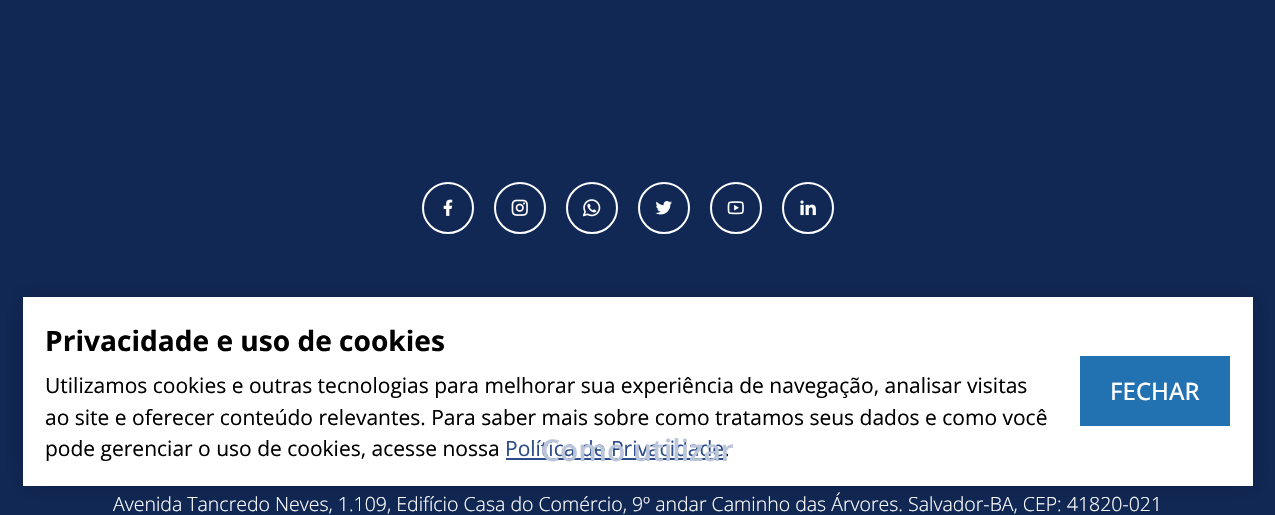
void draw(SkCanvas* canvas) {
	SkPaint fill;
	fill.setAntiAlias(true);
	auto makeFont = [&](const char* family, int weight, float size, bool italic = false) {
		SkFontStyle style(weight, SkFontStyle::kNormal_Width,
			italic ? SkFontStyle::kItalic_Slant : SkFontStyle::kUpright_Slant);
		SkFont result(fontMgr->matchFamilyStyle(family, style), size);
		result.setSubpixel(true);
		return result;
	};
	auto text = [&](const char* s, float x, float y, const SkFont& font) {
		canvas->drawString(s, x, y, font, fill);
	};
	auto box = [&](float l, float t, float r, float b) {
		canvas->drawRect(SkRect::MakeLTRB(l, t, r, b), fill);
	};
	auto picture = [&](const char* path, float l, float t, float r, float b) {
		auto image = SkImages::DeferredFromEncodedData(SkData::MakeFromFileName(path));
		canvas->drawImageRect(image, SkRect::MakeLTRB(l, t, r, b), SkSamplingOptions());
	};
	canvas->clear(0xFF112855);
	fill.setColor(0x33000000);
	fill.setMaskFilter(SkMaskFilter::MakeBlur(kNormal_SkBlurStyle, 12));
	canvas->drawRect(SkRect::MakeLTRB(23, 297, 1253, 486), fill);
	fill.setMaskFilter(nullptr);
	fill.setColor(0xFFFFFFFF);
	box(23, 297, 1253, 486);
	fill.setColor(0xFF2B4B8A);
	box(506, 458, 725, 460);
	fill.setColor(0xFF2271B1);
	box(1080, 356, 1230, 426);
	fill.setStyle(SkPaint::kStroke_Style);
	fill.setStrokeWidth(2);
	fill.setColor(0xFFFFFFFF);
	canvas->drawCircle(448, 208, 25, fill);
	picture("image0.png", 443, 199, 453, 216);
	canvas->drawCircle(520, 208, 25, fill);
	picture("image1.png", 511, 199, 528, 216);
	canvas->drawCircle(592, 208, 25, fill);
	picture("image2.png", 582, 199, 601, 217);
	canvas->drawCircle(664, 208, 25, fill);
	picture("image3.png", 655, 201, 672, 215);
	canvas->drawCircle(736, 208, 25, fill);
	picture("image4.png", 727, 201, 744, 215);
	canvas->drawCircle(808, 208, 25, fill);
	picture("image5.png", 800, 200, 816, 216);
	auto font1 = makeFont("Open Sans", 700, 28.1f);
	fill.setStyle(SkPaint::kFill_Style);
	fill.setColor(0xFF000000);
	text("Privacidade e uso de cookies", 45, 351, font1);
	auto font2 = makeFont("Open Sans", 400, 21);
	text("Utilizamos cookies e outras tecnologias para melhorar sua experiência de navegação, analisar visitas", 45, 393, font2);
	text("ao site e oferecer conteúdo relevantes. Para saber mais sobre como tratamos seus dados e como você", 45, 425, font2);
	text("pode gerenciar o uso de cookies, acesse nossa", 45, 456, font2);
	fill.setColor(0xFF2B4B8A);
	text("Política de Privacidade", 505, 456, font2);
	fill.setColor(0xFF000000);
	text(".", 724, 456, font2);
	auto font3 = makeFont("Open Sans", 500, 24);
	fill.setColor(0xFFFFFFFF);
	text("FECHAR", 1110, 400, font3);
	auto font4 = makeFont("Open Sans", 600, 30);
	fill.setColor(0xFFBBC5D9);
	text("Como utilizar", 541, 461, font4);
	auto font5 = makeFont("Open Sans", 300, 19.5f);
	fill.setColor(0xFFFFFFFF);
	text("Avenida Tancredo Neves, 1.109, Edifício Casa do Comércio, 9º andar Caminho das Árvores. Salvador-BA, CEP: 41820-021", 113, 511, font5);
}
